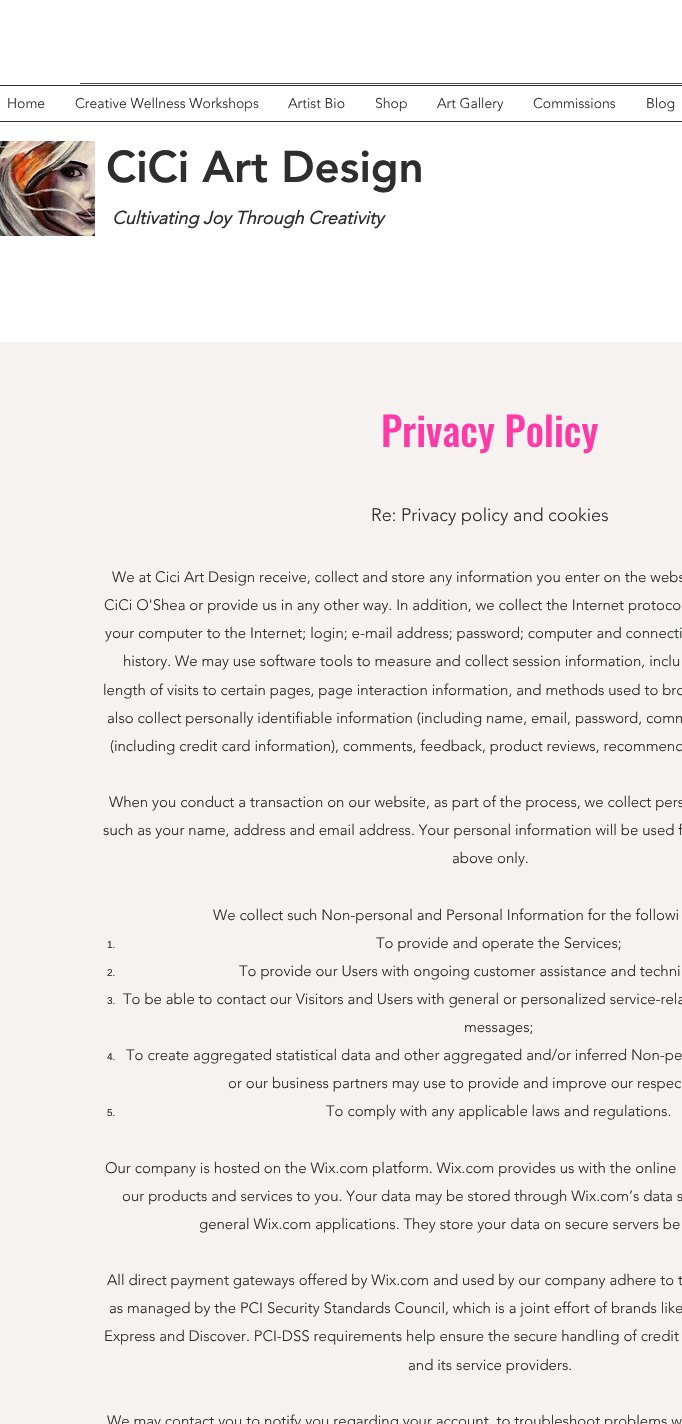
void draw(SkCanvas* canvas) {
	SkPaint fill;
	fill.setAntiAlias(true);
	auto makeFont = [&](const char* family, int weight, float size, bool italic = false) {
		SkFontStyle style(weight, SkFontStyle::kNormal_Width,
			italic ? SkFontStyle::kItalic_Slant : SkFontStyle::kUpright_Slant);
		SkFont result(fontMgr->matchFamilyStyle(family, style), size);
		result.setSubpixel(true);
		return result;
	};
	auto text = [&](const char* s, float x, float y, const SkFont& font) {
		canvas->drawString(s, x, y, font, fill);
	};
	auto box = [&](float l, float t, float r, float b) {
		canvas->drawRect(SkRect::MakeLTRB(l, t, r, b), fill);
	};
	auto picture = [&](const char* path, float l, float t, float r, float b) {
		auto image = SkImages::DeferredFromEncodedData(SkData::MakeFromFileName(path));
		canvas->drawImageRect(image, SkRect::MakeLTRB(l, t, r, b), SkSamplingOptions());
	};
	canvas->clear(0xFFF5F2F0);
	fill.setColor(0xFFFFFFFF);
	box(0, 0, 682, 342);
	fill.setColor(0xFF4D4D4D);
	box(80, 83, 682, 84);
	fill.setColor(0xFF2E2E2E);
	box(0, 85, 682, 86);
	box(0, 121, 682, 122);
	picture("image0.png", 0, 141, 95, 236);
	auto font1 = makeFont("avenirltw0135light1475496", 300, 14);
	text("Home", 7, 108, font1);
	text("Creative Wellness Workshops", 75, 108, font1);
	text("Artist Bio", 288, 108, font1);
	text("Shop", 375, 108, font1);
	text("Art Gallery", 437, 108, font1);
	text("Commissions", 533, 108, font1);
	text("Blog", 646, 108, font1);
	auto font2 = makeFont("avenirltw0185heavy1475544", 900, 44);
	text("CiCi Art Design", 106, 182, font2);
	auto font3 = makeFont("avenirltw0135light1475496", 700, 18, true);
	text("Cultivating Joy Through Creativity", 112, 224, font3);
	auto font4 = makeFont("Oswald", 500, 40);
	fill.setColor(0xFFFF3AA8);
	text("Privacy Policy", 381, 447, font4);
	auto font5 = makeFont("avenirltw0135light1475496", 300, 18);
	fill.setColor(0xFF2E2E2E);
	text("Re: Privacy policy and cookies", 371, 521, font5);
	auto font6 = makeFont("avenirltw0135light1475496", 300, 15);
	text("We at Cici Art Design receive, collect and store any information you enter on the webs", 112, 582, font6);
	text("CiCi O'Shea or provide us in any other way. In addition, we collect the Internet protoco", 104, 610, font6);
	text("your computer to the Internet; login; e-mail address; password; computer and connecti", 105, 638, font6);
	text("history. We may use software tools to measure and collect session information, inclu", 123, 666, font6);
	text("length of visits to certain pages, page interaction information, and methods used to bro", 103, 695, font6);
	text("also collect personally identifiable information (including name, email, password, comm", 107, 723, font6);
	text("(including credit card information), comments, feedback, product reviews, recommend", 110, 751, font6);
	text("When you conduct a transaction on our website, as part of the process, we collect pers", 109, 807, font6);
	text("such as your name, address and email address. Your personal information will be used f", 103, 835, font6);
	text("above only.", 452, 863, font6);
	text("We collect such Non-personal and Personal Information for the followi", 213, 920, font6);
	auto font7 = makeFont("Liberation Sans", 400, 10);
	text("1.", 107, 948, font7);
	text("To provide and operate the Services;", 376, 948, font6);
	text("2.", 107, 976, font7);
	text("To provide our Users with ongoing customer assistance and techni", 239, 976, font6);
	text("3.", 107, 1004, font7);
	text("To be able to contact our Visitors and Users with general or personalized service-rela", 123, 1004, font6);
	text("messages;", 464, 1032, font6);
	text("4.", 107, 1060, font7);
	text("To create aggregated statistical data and other aggregated and/or inferred Non-pe", 126, 1060, font6);
	text("or our business partners may use to provide and improve our respec", 228, 1088, font6);
	text("5.", 107, 1116, font7);
	text("To comply with any applicable laws and regulations.", 326, 1116, font6);
	text("Our company is hosted on the Wix.com platform. Wix.com provides us with the online", 105, 1173, font6);
	text("our products and services to you. Your data may be stored through Wix.com’s data s", 122, 1201, font6);
	text("general Wix.com applications. They store your data on secure servers be", 199, 1229, font6);
	text("All direct payment gateways offered by Wix.com and used by our company adhere to t", 107, 1285, font6);
	text("as managed by the PCI Security Standards Council, which is a joint effort of brands like", 109, 1313, font6);
	text("Express and Discover. PCI-DSS requirements help ensure the secure handling of credit", 104, 1341, font6);
	text("and its service providers.", 408, 1370, font6);
	text("We may contact you to notify you regarding your account, to troubleshoot problems w", 107, 1426, font6);
}
